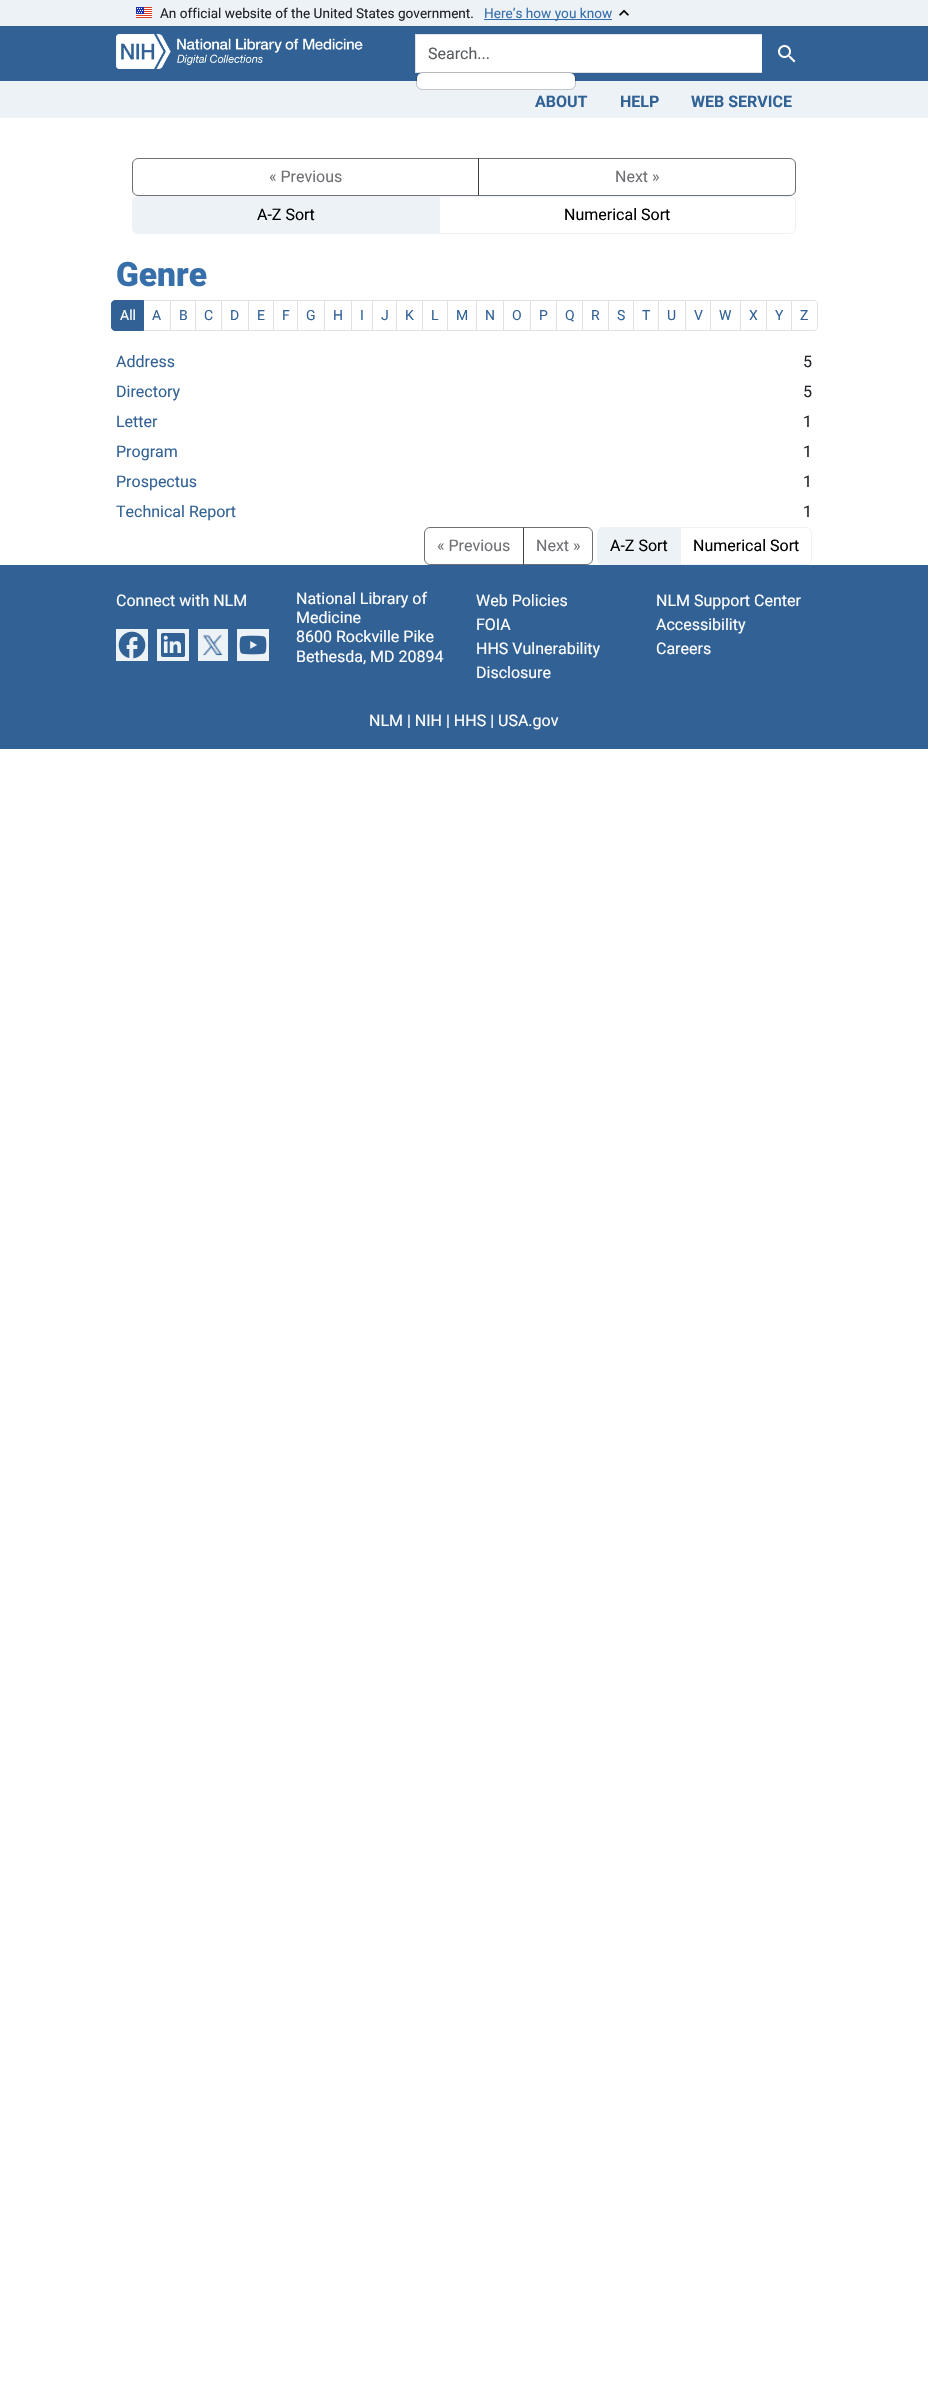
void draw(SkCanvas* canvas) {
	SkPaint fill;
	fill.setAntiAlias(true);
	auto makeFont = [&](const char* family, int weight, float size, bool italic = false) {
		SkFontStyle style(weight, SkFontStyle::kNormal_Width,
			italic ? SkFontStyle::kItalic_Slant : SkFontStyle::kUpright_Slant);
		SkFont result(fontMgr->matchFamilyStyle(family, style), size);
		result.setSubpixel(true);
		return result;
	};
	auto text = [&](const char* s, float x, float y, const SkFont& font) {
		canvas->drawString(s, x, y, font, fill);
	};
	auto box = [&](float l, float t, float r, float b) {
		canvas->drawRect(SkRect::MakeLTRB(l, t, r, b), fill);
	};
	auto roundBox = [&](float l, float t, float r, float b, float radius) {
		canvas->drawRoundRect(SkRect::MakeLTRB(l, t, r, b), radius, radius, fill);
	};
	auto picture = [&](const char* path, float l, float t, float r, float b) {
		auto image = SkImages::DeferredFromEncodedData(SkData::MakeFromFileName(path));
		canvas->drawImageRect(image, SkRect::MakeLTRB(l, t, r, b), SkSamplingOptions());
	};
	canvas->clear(0xFFFFFFFF);
	fill.setColor(0xFFEDF2F7);
	box(0, 0, 928, 26);
	picture("image0.png", 136, 7, 152, 18);
	fill.setColor(0xFF376FAA);
	box(484, 19, 612, 20);
	picture("image1.png", 619, 9, 629, 16);
	fill.setColor(0xFF326295);
	box(0, 26, 928, 81);
	picture("image2.png", 116, 34, 363, 69);
	fill.setColor(0xFFFFFFFF);
	canvas->drawRect(SkRect::MakeLTRB(415.5f, 34.5f, 762.5f, 72.5f), fill);
	fill.setStyle(SkPaint::kStroke_Style);
	fill.setStrokeWidth(1);
	fill.setColor(0xFFDEE2E6);
	canvas->drawRect(SkRect::MakeLTRB(415.5f, 34.5f, 762.5f, 72.5f), fill);
	fill.setStyle(SkPaint::kFill_Style);
	fill.setColor(0xFFEDF2F7);
	box(0, 81, 928, 118);
	fill.setColor(0xFFFFFFFF);
	roundBox(417, 73, 575, 89, 5);
	fill.setStyle(SkPaint::kStroke_Style);
	fill.setColor(0x2E000000);
	canvas->drawRoundRect(SkRect::MakeLTRB(416.5f, 72.5f, 575.5f, 89.5f), 5.5f, 5.5f, fill);
	fill.setStyle(SkPaint::kFill_Style);
	fill.setColor(0xFF326295);
	canvas->drawPath(SkPathBuilder().moveTo(762, 34).lineTo(806, 34).cubicTo(809.5f, 34, 812, 36.5f, 812, 40).lineTo(812, 67).cubicTo(812, 70.5f, 809.5f, 73, 806, 73).lineTo(762, 73).close().detach(), fill);
	picture("image3.png", 778, 45, 796, 63);
	fill.setStyle(SkPaint::kStroke_Style);
	fill.setColor(0xFF6F7174);
	canvas->drawPath(SkPathBuilder().moveTo(138, 158.5f).lineTo(478.5f, 158.5f).lineTo(478.5f, 195.5f).lineTo(138, 195.5f).cubicTo(135, 195.5f, 132.5f, 193, 132.5f, 190).lineTo(132.5f, 164).cubicTo(132.5f, 161, 135, 158.5f, 138, 158.5f).close().detach(), fill);
	fill.setColor(0xA6212529);
	canvas->drawPath(SkPathBuilder().moveTo(478.5f, 158.5f).lineTo(790, 158.5f).cubicTo(793, 158.5f, 795.5f, 161, 795.5f, 164).lineTo(795.5f, 190).cubicTo(795.5f, 193, 793, 195.5f, 790, 195.5f).lineTo(478.5f, 195.5f).close().detach(), fill);
	fill.setColor(0xFFEDF2F7);
	canvas->drawPath(SkPathBuilder().moveTo(439.5f, 196.5f).lineTo(790, 196.5f).cubicTo(793, 196.5f, 795.5f, 199, 795.5f, 202).lineTo(795.5f, 228).cubicTo(795.5f, 231, 793, 233.5f, 790, 233.5f).lineTo(439.5f, 233.5f).close().detach(), fill);
	fill.setStyle(SkPaint::kFill_Style);
	canvas->drawPath(SkPathBuilder().moveTo(138, 196.5f).lineTo(439.5f, 196.5f).lineTo(439.5f, 233.5f).lineTo(138, 233.5f).cubicTo(135, 233.5f, 132.5f, 231, 132.5f, 228).lineTo(132.5f, 202).cubicTo(132.5f, 199, 135, 196.5f, 138, 196.5f).close().detach(), fill);
	fill.setStyle(SkPaint::kStroke_Style);
	canvas->drawPath(SkPathBuilder().moveTo(138, 196.5f).lineTo(439.5f, 196.5f).lineTo(439.5f, 233.5f).lineTo(138, 233.5f).cubicTo(135, 233.5f, 132.5f, 231, 132.5f, 228).lineTo(132.5f, 202).cubicTo(132.5f, 199, 135, 196.5f, 138, 196.5f).close().detach(), fill);
	fill.setColor(0xFFDEE2E6);
	canvas->drawRect(SkRect::MakeLTRB(143.5f, 300.5f, 170.5f, 330.5f), fill);
	fill.setStyle(SkPaint::kFill_Style);
	fill.setColor(0xFF326295);
	canvas->drawPath(SkPathBuilder().moveTo(115, 300.5f).lineTo(143.5f, 300.5f).lineTo(143.5f, 330.5f).lineTo(115, 330.5f).cubicTo(113, 330.5f, 111.5f, 329, 111.5f, 327).lineTo(111.5f, 304).cubicTo(111.5f, 302, 113, 300.5f, 115, 300.5f).close().detach(), fill);
	fill.setStyle(SkPaint::kStroke_Style);
	canvas->drawPath(SkPathBuilder().moveTo(115, 300.5f).lineTo(143.5f, 300.5f).lineTo(143.5f, 330.5f).lineTo(115, 330.5f).cubicTo(113, 330.5f, 111.5f, 329, 111.5f, 327).lineTo(111.5f, 304).cubicTo(111.5f, 302, 113, 300.5f, 115, 300.5f).close().detach(), fill);
	fill.setColor(0xFFDEE2E6);
	canvas->drawRect(SkRect::MakeLTRB(170.5f, 300.5f, 195.5f, 330.5f), fill);
	canvas->drawRect(SkRect::MakeLTRB(195.5f, 300.5f, 221.5f, 330.5f), fill);
	canvas->drawRect(SkRect::MakeLTRB(221.5f, 300.5f, 248.5f, 330.5f), fill);
	canvas->drawRect(SkRect::MakeLTRB(248.5f, 300.5f, 273.5f, 330.5f), fill);
	canvas->drawRect(SkRect::MakeLTRB(273.5f, 300.5f, 297.5f, 330.5f), fill);
	canvas->drawRect(SkRect::MakeLTRB(297.5f, 300.5f, 324.5f, 330.5f), fill);
	canvas->drawRect(SkRect::MakeLTRB(324.5f, 300.5f, 351.5f, 330.5f), fill);
	canvas->drawRect(SkRect::MakeLTRB(351.5f, 300.5f, 372.5f, 330.5f), fill);
	canvas->drawRect(SkRect::MakeLTRB(372.5f, 300.5f, 396.5f, 330.5f), fill);
	canvas->drawRect(SkRect::MakeLTRB(396.5f, 300.5f, 422.5f, 330.5f), fill);
	canvas->drawRect(SkRect::MakeLTRB(422.5f, 300.5f, 447.5f, 330.5f), fill);
	canvas->drawRect(SkRect::MakeLTRB(447.5f, 300.5f, 476.5f, 330.5f), fill);
	canvas->drawRect(SkRect::MakeLTRB(476.5f, 300.5f, 503.5f, 330.5f), fill);
	canvas->drawRect(SkRect::MakeLTRB(503.5f, 300.5f, 530.5f, 330.5f), fill);
	canvas->drawRect(SkRect::MakeLTRB(530.5f, 300.5f, 556.5f, 330.5f), fill);
	canvas->drawRect(SkRect::MakeLTRB(556.5f, 300.5f, 582.5f, 330.5f), fill);
	canvas->drawRect(SkRect::MakeLTRB(582.5f, 300.5f, 608.5f, 330.5f), fill);
	canvas->drawRect(SkRect::MakeLTRB(608.5f, 300.5f, 633.5f, 330.5f), fill);
	canvas->drawRect(SkRect::MakeLTRB(633.5f, 300.5f, 658.5f, 330.5f), fill);
	canvas->drawRect(SkRect::MakeLTRB(658.5f, 300.5f, 685.5f, 330.5f), fill);
	canvas->drawRect(SkRect::MakeLTRB(685.5f, 300.5f, 710.5f, 330.5f), fill);
	canvas->drawRect(SkRect::MakeLTRB(710.5f, 300.5f, 740.5f, 330.5f), fill);
	canvas->drawRect(SkRect::MakeLTRB(740.5f, 300.5f, 766.5f, 330.5f), fill);
	canvas->drawRect(SkRect::MakeLTRB(766.5f, 300.5f, 791.5f, 330.5f), fill);
	fill.setStyle(SkPaint::kFill_Style);
	fill.setColor(0xFFFFFFFF);
	canvas->drawPath(SkPathBuilder().moveTo(791.5f, 300.5f).lineTo(814, 300.5f).cubicTo(816, 300.5f, 817.5f, 302, 817.5f, 304).lineTo(817.5f, 327).cubicTo(817.5f, 329, 816, 330.5f, 814, 330.5f).lineTo(791.5f, 330.5f).close().detach(), fill);
	fill.setStyle(SkPaint::kStroke_Style);
	fill.setColor(0xFFDEE2E6);
	canvas->drawPath(SkPathBuilder().moveTo(791.5f, 300.5f).lineTo(814, 300.5f).cubicTo(816, 300.5f, 817.5f, 302, 817.5f, 304).lineTo(817.5f, 327).cubicTo(817.5f, 329, 816, 330.5f, 814, 330.5f).lineTo(791.5f, 330.5f).close().detach(), fill);
	fill.setColor(0xFF6F7174);
	canvas->drawPath(SkPathBuilder().moveTo(430, 527.5f).lineTo(523.5f, 527.5f).lineTo(523.5f, 564.5f).lineTo(430, 564.5f).cubicTo(427, 564.5f, 424.5f, 562, 424.5f, 559).lineTo(424.5f, 533).cubicTo(424.5f, 530, 427, 527.5f, 430, 527.5f).close().detach(), fill);
	fill.setColor(0xA6212529);
	canvas->drawPath(SkPathBuilder().moveTo(523.5f, 527.5f).lineTo(587, 527.5f).cubicTo(590, 527.5f, 592.5f, 530, 592.5f, 533).lineTo(592.5f, 559).cubicTo(592.5f, 562, 590, 564.5f, 587, 564.5f).lineTo(523.5f, 564.5f).close().detach(), fill);
	fill.setColor(0xFFEDF2F7);
	canvas->drawPath(SkPathBuilder().moveTo(680.5f, 527.5f).lineTo(806, 527.5f).cubicTo(809, 527.5f, 811.5f, 530, 811.5f, 533).lineTo(811.5f, 559).cubicTo(811.5f, 562, 809, 564.5f, 806, 564.5f).lineTo(680.5f, 564.5f).close().detach(), fill);
	fill.setStyle(SkPaint::kFill_Style);
	canvas->drawPath(SkPathBuilder().moveTo(603, 527.5f).lineTo(680.5f, 527.5f).lineTo(680.5f, 564.5f).lineTo(603, 564.5f).cubicTo(600, 564.5f, 597.5f, 562, 597.5f, 559).lineTo(597.5f, 533).cubicTo(597.5f, 530, 600, 527.5f, 603, 527.5f).close().detach(), fill);
	fill.setStyle(SkPaint::kStroke_Style);
	canvas->drawPath(SkPathBuilder().moveTo(603, 527.5f).lineTo(680.5f, 527.5f).lineTo(680.5f, 564.5f).lineTo(603, 564.5f).cubicTo(600, 564.5f, 597.5f, 562, 597.5f, 559).lineTo(597.5f, 533).cubicTo(597.5f, 530, 600, 527.5f, 603, 527.5f).close().detach(), fill);
	fill.setStyle(SkPaint::kFill_Style);
	fill.setColor(0xFF326295);
	box(0, 565, 928, 749);
	fill.setColor(0xFFEDF2F7);
	box(116, 629, 148, 661);
	picture("image4.png", 118, 631, 146, 659);
	box(157, 629, 189, 661);
	picture("image5.png", 161, 633, 185, 657);
	box(198, 629, 228, 661);
	picture("image6.png", 202, 634, 223, 656);
	box(237, 629, 269, 661);
	picture("image7.png", 239, 635, 267, 655);
	auto font1 = makeFont("Roboto", 400, 13.6f);
	fill.setColor(0xFF212529);
	text("An official website of the United States government.", 160, 18, font1);
	fill.setColor(0xFF376FAA);
	text("Here’s how you know", 484, 18, font1);
	auto font2 = makeFont("Roboto", 400, 16);
	fill.setColor(0xFF595C5F);
	text("Search...", 428, 59, font2);
	auto font3 = makeFont("Roboto", 700, 16);
	fill.setColor(0xFF326295);
	text("ABOUT", 535, 107, font3);
	text("HELP", 620, 107, font3);
	text("WEB SERVICE", 691, 107, font3);
	fill.setColor(0xFF6F7174);
	text("« Previous", 269, 182, font2);
	text("Next »", 615, 182, font2);
	fill.setColor(0xFF000000);
	text("A-Z Sort", 257, 220, font2);
	text("Numerical Sort", 564, 220, font2);
	auto font4 = makeFont("Roboto", 900, 33.5f);
	fill.setColor(0xFF376FAA);
	text("Genre", 116, 286, font4);
	auto font5 = makeFont("Roboto", 400, 14);
	fill.setColor(0xFFFFFFFF);
	text("All", 120, 320, font5);
	fill.setColor(0xFF326295);
	text("A", 152, 320, font5);
	text("B", 179, 320, font5);
	text("C", 204, 320, font5);
	text("D", 230, 320, font5);
	text("E", 257, 320, font5);
	text("F", 282, 320, font5);
	text("G", 306, 320, font5);
	text("H", 333, 320, font5);
	text("I", 360, 320, font5);
	text("J", 381, 320, font5);
	text("K", 405, 320, font5);
	text("L", 431, 320, font5);
	text("M", 456, 320, font5);
	text("N", 485, 320, font5);
	text("O", 512, 320, font5);
	text("P", 539, 320, font5);
	text("Q", 565, 320, font5);
	text("R", 591, 320, font5);
	text("S", 617, 320, font5);
	text("T", 642, 320, font5);
	text("U", 667, 320, font5);
	text("V", 694, 320, font5);
	text("W", 719, 320, font5);
	text("X", 749, 320, font5);
	text("Y", 775, 320, font5);
	text("Z", 800, 320, font5);
	text("Address", 116, 367, font2);
	fill.setColor(0xFF212529);
	text("5", 803, 367, font2);
	fill.setColor(0xFF326295);
	text("Directory", 116, 397, font2);
	fill.setColor(0xFF212529);
	text("5", 803, 397, font2);
	fill.setColor(0xFF326295);
	text("Letter", 116, 427, font2);
	fill.setColor(0xFF212529);
	text("1", 803, 427, font2);
	fill.setColor(0xFF326295);
	text("Program", 116, 457, font2);
	fill.setColor(0xFF212529);
	text("1", 803, 457, font2);
	fill.setColor(0xFF326295);
	text("Prospectus", 116, 487, font2);
	fill.setColor(0xFF212529);
	text("1", 803, 487, font2);
	fill.setColor(0xFF326295);
	text("Technical Report", 116, 517, font2);
	fill.setColor(0xFF212529);
	text("1", 803, 517, font2);
	fill.setColor(0xFF6F7174);
	text("« Previous", 437, 551, font2);
	text("Next »", 536, 551, font2);
	fill.setColor(0xFF000000);
	text("A-Z Sort", 610, 551, font2);
	text("Numerical Sort", 693, 551, font2);
	fill.setColor(0xFFFFFFFF);
	text("Connect with NLM", 116, 606, font2);
	text("National Library of", 296, 604, font2);
	text("Medicine", 296, 623, font2);
	text("8600 Rockville Pike", 296, 642, font2);
	text("Bethesda, MD 20894", 296, 662, font2);
	text("Web Policies", 476, 606, font2);
	text("FOIA", 476, 630, font2);
	text("HHS Vulnerability", 476, 654, font2);
	text("Disclosure", 476, 678, font2);
	text("NLM Support Center", 656, 606, font2);
	text("Accessibility", 656, 630, font2);
	text("Careers", 656, 654, font2);
	text("NLM | NIH | HHS | USA.gov", 369, 726, font2);
}
